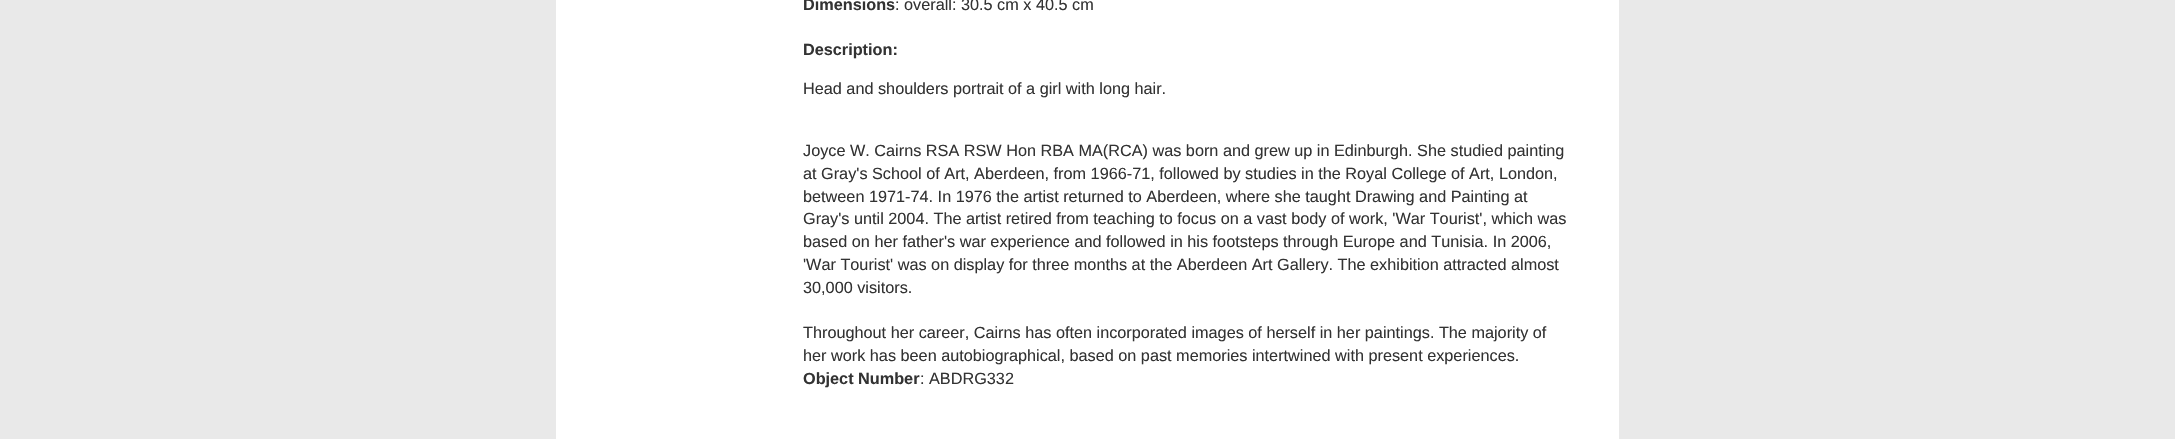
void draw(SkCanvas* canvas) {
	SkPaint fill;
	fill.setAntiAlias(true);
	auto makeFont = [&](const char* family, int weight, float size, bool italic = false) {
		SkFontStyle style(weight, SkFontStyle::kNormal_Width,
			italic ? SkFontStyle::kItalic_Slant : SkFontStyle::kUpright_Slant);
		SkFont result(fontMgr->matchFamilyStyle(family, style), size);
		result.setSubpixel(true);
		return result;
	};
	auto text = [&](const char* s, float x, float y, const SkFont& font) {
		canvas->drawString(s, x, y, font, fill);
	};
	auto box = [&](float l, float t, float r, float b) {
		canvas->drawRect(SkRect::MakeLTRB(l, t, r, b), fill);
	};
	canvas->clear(0xFFE9E9E9);
	fill.setColor(0xFFFFFFFF);
	box(556, 0, 1619, 439);
	auto font1 = makeFont("Liberation Sans", 700, 16.25f);
	fill.setColor(0xFF333333);
	text("Dimensions", 803, 10, font1);
	auto font2 = makeFont("Liberation Sans", 400, 16.25f);
	text(": overall: 30.5 cm x 40.5 cm", 895, 10, font2);
	text("Description:", 803, 55, font1);
	text("Head and shoulders portrait of a girl with long hair.", 803, 94, font2);
	text("Joyce W. Cairns RSA RSW Hon RBA MA(RCA) was born and grew up in Edinburgh. She studied painting", 803, 156, font2);
	text("at Gray's School of Art, Aberdeen, from 1966-71, followed by studies in the Royal College of Art, London,", 803, 179, font2);
	text("between 1971-74. In 1976 the artist returned to Aberdeen, where she taught Drawing and Painting at", 803, 202, font2);
	text("Gray's until 2004. The artist retired from teaching to focus on a vast body of work, 'War Tourist', which was", 803, 224, font2);
	text("based on her father's war experience and followed in his footsteps through Europe and Tunisia. In 2006,", 803, 247, font2);
	text("'War Tourist' was on display for three months at the Aberdeen Art Gallery. The exhibition attracted almost", 803, 270, font2);
	text("30,000 visitors.", 803, 293, font2);
	text("Throughout her career, Cairns has often incorporated images of herself in her paintings. The majority of", 803, 338, font2);
	text("her work has been autobiographical, based on past memories intertwined with present experiences.", 803, 361, font2);
	text("Object Number", 803, 384, font1);
	text(": ABDRG332", 920, 384, font2);
}
